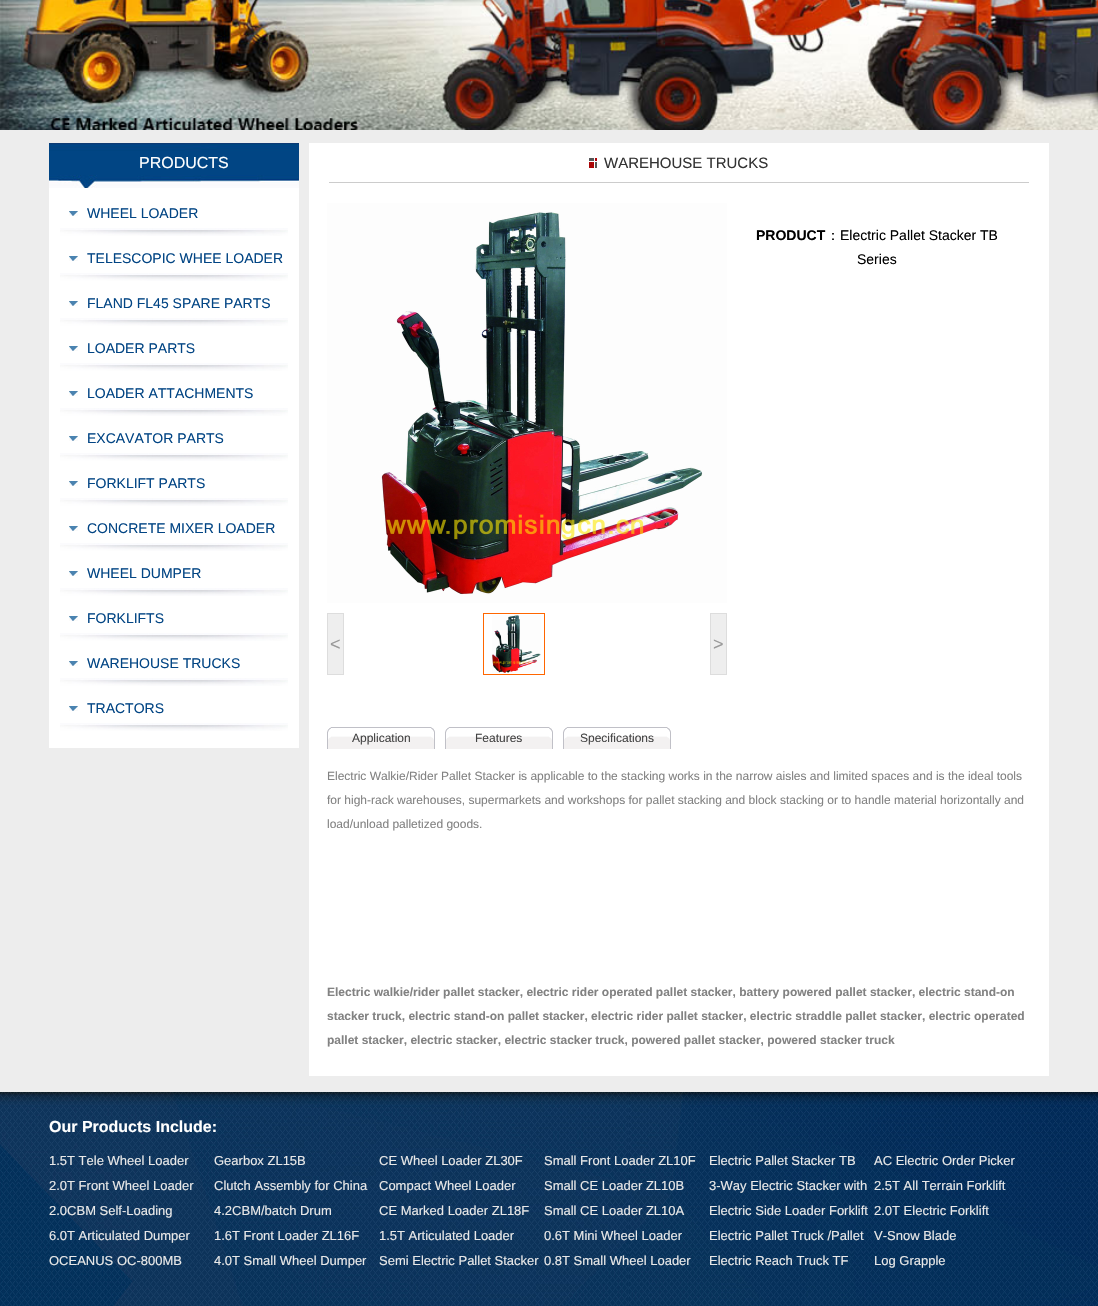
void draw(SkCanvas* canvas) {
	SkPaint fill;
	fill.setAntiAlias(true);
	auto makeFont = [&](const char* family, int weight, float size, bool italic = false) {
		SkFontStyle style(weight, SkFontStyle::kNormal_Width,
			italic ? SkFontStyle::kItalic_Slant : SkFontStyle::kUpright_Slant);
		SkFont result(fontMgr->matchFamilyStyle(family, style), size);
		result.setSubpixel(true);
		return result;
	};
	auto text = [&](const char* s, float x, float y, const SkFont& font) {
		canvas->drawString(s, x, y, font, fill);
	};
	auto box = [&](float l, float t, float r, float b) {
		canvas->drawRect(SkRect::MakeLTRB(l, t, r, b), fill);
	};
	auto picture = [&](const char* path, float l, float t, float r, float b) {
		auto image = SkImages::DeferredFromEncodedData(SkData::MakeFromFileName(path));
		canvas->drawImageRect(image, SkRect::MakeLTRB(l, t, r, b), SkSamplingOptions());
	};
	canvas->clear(0xFFEDEDED);
	picture("image0.png", 0, 0, 1098, 130);
	fill.setColor(0xFFFFFFFF);
	box(49, 188, 299, 748);
	picture("image1.png", 49, 143, 299, 188);
	picture("image2.png", 60, 228, 288, 236);
	picture("image3.png", 69, 211, 78, 216);
	picture("image2.png", 60, 273, 288, 281);
	picture("image3.png", 69, 256, 78, 261);
	picture("image2.png", 60, 318, 288, 326);
	picture("image3.png", 69, 301, 78, 306);
	picture("image2.png", 60, 363, 288, 371);
	picture("image3.png", 69, 346, 78, 351);
	picture("image2.png", 60, 408, 288, 416);
	picture("image3.png", 69, 391, 78, 396);
	picture("image2.png", 60, 453, 288, 461);
	picture("image3.png", 69, 436, 78, 441);
	picture("image2.png", 60, 498, 288, 506);
	picture("image3.png", 69, 481, 78, 486);
	picture("image2.png", 60, 543, 288, 551);
	picture("image3.png", 69, 526, 78, 531);
	picture("image2.png", 60, 588, 288, 596);
	picture("image3.png", 69, 571, 78, 576);
	picture("image2.png", 60, 633, 288, 641);
	picture("image3.png", 69, 616, 78, 621);
	picture("image2.png", 60, 678, 288, 686);
	picture("image3.png", 69, 661, 78, 666);
	picture("image2.png", 60, 723, 288, 731);
	picture("image3.png", 69, 706, 78, 711);
	box(309, 143, 1049, 1076);
	fill.setColor(0xFFCCCCCC);
	box(329, 182, 1029, 183);
	picture("image4.png", 589, 158, 597, 168);
	picture("image5.png", 327, 203, 727, 603);
	fill.setStyle(SkPaint::kStroke_Style);
	fill.setStrokeWidth(1);
	fill.setColor(0xFFFF6600);
	canvas->drawRect(SkRect::MakeLTRB(483.5f, 613.5f, 544.5f, 674.5f), fill);
	picture("image6.png", 492, 615, 541, 673);
	fill.setStyle(SkPaint::kFill_Style);
	fill.setColor(0xFFEEEEEE);
	canvas->drawRect(SkRect::MakeLTRB(327.5f, 613.5f, 343.5f, 674.5f), fill);
	fill.setStyle(SkPaint::kStroke_Style);
	fill.setColor(0xFFDDDDDD);
	canvas->drawRect(SkRect::MakeLTRB(327.5f, 613.5f, 343.5f, 674.5f), fill);
	fill.setStyle(SkPaint::kFill_Style);
	fill.setColor(0xFFEEEEEE);
	canvas->drawRect(SkRect::MakeLTRB(710.5f, 613.5f, 726.5f, 674.5f), fill);
	fill.setStyle(SkPaint::kStroke_Style);
	fill.setColor(0xFFDDDDDD);
	canvas->drawRect(SkRect::MakeLTRB(710.5f, 613.5f, 726.5f, 674.5f), fill);
	picture("image7.png", 327, 727, 435, 749);
	picture("image7.png", 445, 727, 553, 749);
	picture("image7.png", 563, 727, 671, 749);
	picture("image8.png", 0, 1092, 1098, 1306);
	auto font1 = makeFont("Liberation Sans", 400, 16);
	fill.setStyle(SkPaint::kFill_Style);
	fill.setColor(0xFFFFFFFF);
	text("PRODUCTS", 139, 168, font1);
	auto font2 = makeFont("Liberation Sans", 400, 14);
	fill.setColor(0xFF024584);
	text("WHEEL LOADER", 87, 218, font2);
	text("TELESCOPIC WHEE LOADER", 87, 263, font2);
	text("FLAND FL45 SPARE PARTS", 87, 308, font2);
	text("LOADER PARTS", 87, 353, font2);
	text("LOADER ATTACHMENTS", 87, 398, font2);
	text("EXCAVATOR PARTS", 87, 443, font2);
	text("FORKLIFT PARTS", 87, 488, font2);
	text("CONCRETE MIXER LOADER", 87, 533, font2);
	text("WHEEL DUMPER", 87, 578, font2);
	text("FORKLIFTS", 87, 623, font2);
	text("WAREHOUSE TRUCKS", 87, 668, font2);
	text("TRACTORS", 87, 713, font2);
	auto font3 = makeFont("Liberation Sans", 400, 15);
	fill.setColor(0xFF333333);
	text("WAREHOUSE TRUCKS", 604, 168, font3);
	auto font4 = makeFont("Liberation Sans", 700, 14);
	fill.setColor(0xFF000000);
	text("PRODUCT", 756, 240, font4);
	auto font5 = makeFont("WenQuanYi Zen Hei", 500, 14);
	text("：", 826, 240, font5);
	text("Electric Pallet Stacker TB", 840, 240, font2);
	text("Series", 857, 264, font2);
	auto font6 = makeFont("Liberation Sans", 400, 18);
	fill.setColor(0xFF999999);
	text("<", 330, 650, font6);
	text(">", 713, 650, font6);
	auto font7 = makeFont("Liberation Sans", 400, 12);
	fill.setColor(0xFF444444);
	text("Application", 352, 742, font7);
	text("Features", 475, 742, font7);
	text("Specifications", 580, 742, font7);
	fill.setColor(0xFF828282);
	text("Electric Walkie/Rider Pallet Stacker is applicable to the stacking works in the narrow aisles and limited spaces and is the ideal tools", 327, 780, font7);
	text("for high-rack warehouses, supermarkets and workshops for pallet stacking and block stacking or to handle material horizontally and", 327, 804, font7);
	text("load/unload palletized goods.", 327, 828, font7);
	auto font8 = makeFont("Liberation Sans", 700, 12);
	text("Electric walkie/rider pallet stacker, electric rider operated pallet stacker, battery powered pallet stacker, electric stand-on", 327, 996, font8);
	text("stacker truck, electric stand-on pallet stacker, electric rider pallet stacker, electric straddle pallet stacker, electric operated", 327, 1020, font8);
	text("pallet stacker, electric stacker, electric stacker truck, powered pallet stacker, powered stacker truck", 327, 1044, font8);
	auto font9 = makeFont("Liberation Sans", 700, 16);
	fill.setColor(0xFFFFFFFF);
	text("Our Products Include:", 49, 1132, font9);
	auto font10 = makeFont("Liberation Sans", 400, 13);
	fill.setColor(0xFFE8E8E8);
	text("1.5T Tele Wheel Loader", 49, 1165, font10);
	text("2.0T Front Wheel Loader", 49, 1190, font10);
	text("2.0CBM Self-Loading", 49, 1215, font10);
	text("6.0T Articulated Dumper", 49, 1240, font10);
	text("OCEANUS OC-800MB", 49, 1265, font10);
	text("Gearbox ZL15B", 214, 1165, font10);
	text("Clutch Assembly for China", 214, 1190, font10);
	text("4.2CBM/batch Drum", 214, 1215, font10);
	text("1.6T Front Loader ZL16F", 214, 1240, font10);
	text("4.0T Small Wheel Dumper", 214, 1265, font10);
	text("CE Wheel Loader ZL30F", 379, 1165, font10);
	text("Compact Wheel Loader", 379, 1190, font10);
	text("CE Marked Loader ZL18F", 379, 1215, font10);
	text("1.5T Articulated Loader", 379, 1240, font10);
	text("Semi Electric Pallet Stacker", 379, 1265, font10);
	text("Small Front Loader ZL10F", 544, 1165, font10);
	text("Small CE Loader ZL10B", 544, 1190, font10);
	text("Small CE Loader ZL10A", 544, 1215, font10);
	text("0.6T Mini Wheel Loader", 544, 1240, font10);
	text("0.8T Small Wheel Loader", 544, 1265, font10);
	text("Electric Pallet Stacker TB", 709, 1165, font10);
	text("3-Way Electric Stacker with", 709, 1190, font10);
	text("Electric Side Loader Forklift", 709, 1215, font10);
	text("Electric Pallet Truck /Pallet", 709, 1240, font10);
	text("Electric Reach Truck TF", 709, 1265, font10);
	text("AC Electric Order Picker", 874, 1165, font10);
	text("2.5T All Terrain Forklift", 874, 1190, font10);
	text("2.0T Electric Forklift", 874, 1215, font10);
	text("V-Snow Blade", 874, 1240, font10);
	text("Log Grapple", 874, 1265, font10);
}
